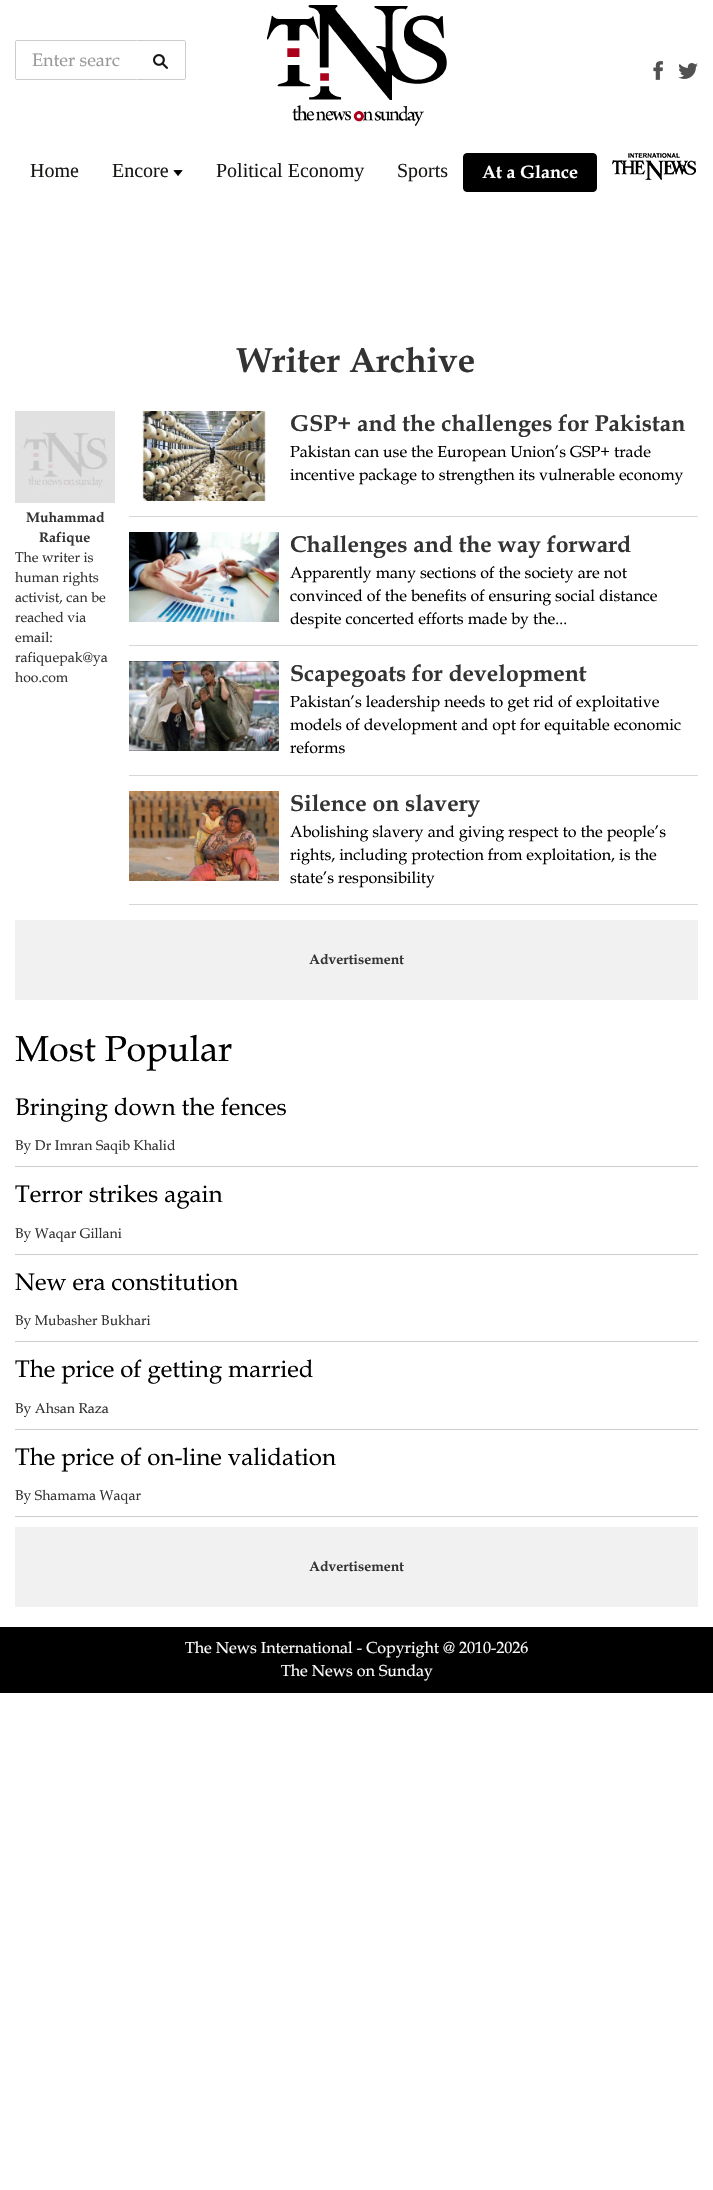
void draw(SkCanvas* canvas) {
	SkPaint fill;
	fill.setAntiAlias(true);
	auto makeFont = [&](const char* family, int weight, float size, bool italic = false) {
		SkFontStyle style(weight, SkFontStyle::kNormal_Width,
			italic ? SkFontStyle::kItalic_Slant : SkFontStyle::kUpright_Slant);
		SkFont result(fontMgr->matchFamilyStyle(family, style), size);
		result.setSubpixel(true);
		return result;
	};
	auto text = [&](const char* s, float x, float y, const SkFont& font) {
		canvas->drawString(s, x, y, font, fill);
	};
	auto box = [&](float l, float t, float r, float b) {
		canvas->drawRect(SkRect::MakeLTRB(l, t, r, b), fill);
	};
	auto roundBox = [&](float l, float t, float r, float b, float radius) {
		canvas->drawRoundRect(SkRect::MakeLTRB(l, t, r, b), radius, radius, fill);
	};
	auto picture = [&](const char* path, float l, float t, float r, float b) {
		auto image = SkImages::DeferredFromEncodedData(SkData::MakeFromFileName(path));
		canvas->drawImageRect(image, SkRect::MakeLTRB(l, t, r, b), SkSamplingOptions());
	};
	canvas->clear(0xFFFFFFFF);
	fill.setStyle(SkPaint::kStroke_Style);
	fill.setStrokeWidth(1);
	fill.setColor(0xFFCCCCCC);
	canvas->drawRoundRect(SkRect::MakeLTRB(15.5f, 40.5f, 138.5f, 79.5f), 1.5f, 1.5f, fill);
	fill.setStyle(SkPaint::kFill_Style);
	fill.setColor(0xFFFFFFFF);
	roundBox(136, 40, 186, 80, 2);
	fill.setColor(0xFFCCCCCC);
	box(137, 40, 185, 41);
	box(185, 41, 186, 79);
	box(137, 79, 185, 80);
	picture("image0.png", 153, 54, 168, 69);
	picture("image1.png", 267, 5, 447, 126);
	picture("image2.png", 653, 61, 663, 80);
	picture("image3.png", 678, 63, 698, 79);
	picture("image4.png", 173, 170, 183, 176);
	fill.setColor(0xFF000000);
	canvas->drawRoundRect(SkRect::MakeLTRB(463.5f, 153.5f, 596.5f, 191.5f), 3.5f, 3.5f, fill);
	fill.setStyle(SkPaint::kStroke_Style);
	canvas->drawRoundRect(SkRect::MakeLTRB(463.5f, 153.5f, 596.5f, 191.5f), 3.5f, 3.5f, fill);
	picture("image5.png", 612, 153, 696, 180);
	picture("image6.png", 15, 411, 115, 503);
	fill.setStyle(SkPaint::kFill_Style);
	fill.setColor(0xFFD7D7D7);
	box(129, 516, 698, 517);
	picture("image7.png", 142, 411, 266, 501);
	box(129, 645, 698, 646);
	picture("image8.png", 129, 532, 279, 622);
	box(129, 775, 698, 776);
	picture("image9.png", 129, 661, 279, 751);
	box(129, 904, 698, 905);
	picture("image10.png", 129, 791, 279, 881);
	fill.setColor(0xFFF1F1F1);
	box(15, 920, 698, 1000);
	fill.setColor(0xFFCCCCCC);
	box(15, 1166, 698, 1167);
	box(15, 1254, 698, 1255);
	box(15, 1341, 698, 1342);
	box(15, 1429, 698, 1430);
	box(15, 1516, 698, 1517);
	fill.setColor(0xFFF1F1F1);
	box(15, 1527, 698, 1607);
	fill.setColor(0xFF000000);
	box(0, 1627, 713, 1693);
	auto font1 = makeFont("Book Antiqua", 400, 18);
	fill.setColor(0xFF999999);
	text("Enter searc", 32, 66, font1);
	auto font2 = makeFont("Liberation Serif", 400, 20);
	fill.setColor(0xFF181716);
	text("Home", 30, 177, font2);
	text("Encore", 112, 177, font2);
	text("Political Economy", 216, 177, font2);
	text("Sports", 397, 177, font2);
	auto font3 = makeFont("Book Antiqua", 700, 18);
	fill.setColor(0xFFFFFFFF);
	text("At a Glance", 482, 178, font3);
	auto font4 = makeFont("Book Antiqua", 700, 35);
	fill.setColor(0xFF333333);
	text("Writer Archive", 237, 372, font4);
	auto font5 = makeFont("Book Antiqua", 700, 14);
	text("Muhammad", 26, 522, font5);
	text("Rafique", 39, 542, font5);
	auto font6 = makeFont("Book Antiqua", 400, 14);
	text("The writer is", 15, 562, font6);
	text("human rights", 15, 582, font6);
	text("activist, can be", 15, 602, font6);
	text("reached via", 15, 622, font6);
	text("email:", 15, 642, font6);
	text("rafiquepak@ya", 15, 662, font6);
	text("hoo.com", 15, 682, font6);
	auto font7 = makeFont("Book Antiqua", 700, 23);
	text("GSP+ and the challenges for Pakistan", 290, 431, font7);
	auto font8 = makeFont("Book Antiqua", 400, 16);
	fill.setColor(0xFF000000);
	text("Pakistan can use the European Union’s GSP+ trade", 290, 457, font8);
	text("incentive package to strengthen its vulnerable economy", 290, 480, font8);
	fill.setColor(0xFF333333);
	text("Challenges and the way forward", 290, 552, font7);
	fill.setColor(0xFF000000);
	text("Apparently many sections of the society are not", 290, 578, font8);
	text("convinced of the benefits of ensuring social distance", 290, 601, font8);
	text("despite concerted efforts made by the...", 290, 624, font8);
	fill.setColor(0xFF333333);
	text("Scapegoats for development", 290, 681, font7);
	fill.setColor(0xFF000000);
	text("Pakistan’s leadership needs to get rid of exploitative", 290, 707, font8);
	text("models of development and opt for equitable economic", 290, 730, font8);
	text("reforms", 290, 753, font8);
	fill.setColor(0xFF333333);
	text("Silence on slavery", 290, 811, font7);
	fill.setColor(0xFF000000);
	text("Abolishing slavery and giving respect to the people’s", 290, 837, font8);
	text("rights, including protection from exploitation, is the", 290, 860, font8);
	text("state’s responsibility", 290, 883, font8);
	fill.setColor(0xFF333333);
	text("Advertisement", 309, 964, font5);
	auto font9 = makeFont("Book Antiqua", 400, 36);
	fill.setColor(0xFF000000);
	text("Most Popular", 15, 1061, font9);
	auto font10 = makeFont("Book Antiqua", 400, 24);
	text("Bringing down the fences", 15, 1115, font10);
	fill.setColor(0xFF333333);
	text("By Dr Imran Saqib Khalid", 15, 1150, font6);
	fill.setColor(0xFF000000);
	text("Terror strikes again", 15, 1202, font10);
	fill.setColor(0xFF333333);
	text("By Waqar Gillani", 15, 1238, font6);
	fill.setColor(0xFF000000);
	text("New era constitution", 15, 1290, font10);
	fill.setColor(0xFF333333);
	text("By Mubasher Bukhari", 15, 1325, font6);
	fill.setColor(0xFF000000);
	text("The price of getting married", 15, 1377, font10);
	fill.setColor(0xFF333333);
	text("By Ahsan Raza", 15, 1413, font6);
	fill.setColor(0xFF000000);
	text("The price of on-line validation", 15, 1465, font10);
	fill.setColor(0xFF333333);
	text("By Shamama Waqar", 15, 1500, font6);
	text("Advertisement", 309, 1571, font5);
	fill.setColor(0xFFFFFFFF);
	text("The News International - Copyright @ 2010-2026", 185, 1653, font8);
	text("The News on Sunday", 281, 1676, font8);
}
